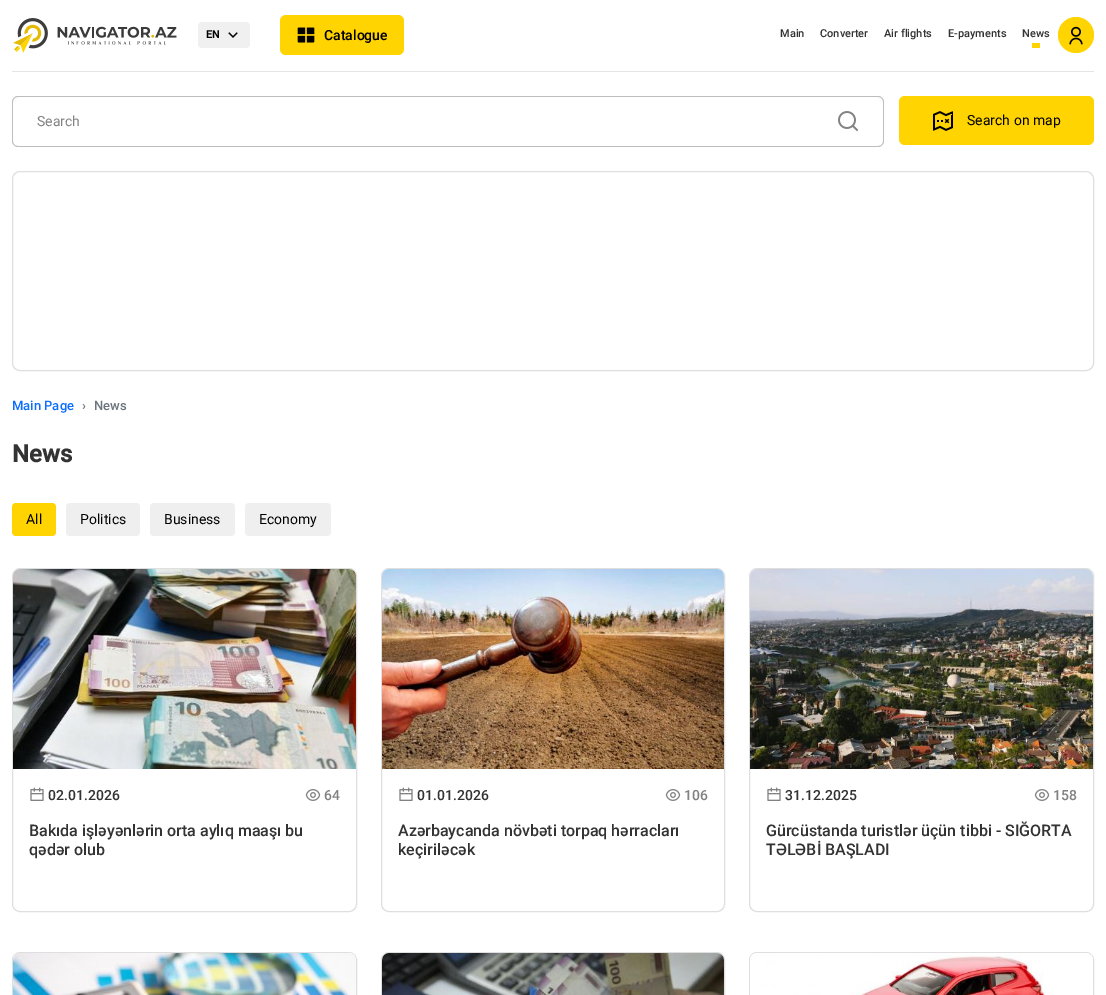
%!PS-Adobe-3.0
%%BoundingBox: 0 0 1106 995
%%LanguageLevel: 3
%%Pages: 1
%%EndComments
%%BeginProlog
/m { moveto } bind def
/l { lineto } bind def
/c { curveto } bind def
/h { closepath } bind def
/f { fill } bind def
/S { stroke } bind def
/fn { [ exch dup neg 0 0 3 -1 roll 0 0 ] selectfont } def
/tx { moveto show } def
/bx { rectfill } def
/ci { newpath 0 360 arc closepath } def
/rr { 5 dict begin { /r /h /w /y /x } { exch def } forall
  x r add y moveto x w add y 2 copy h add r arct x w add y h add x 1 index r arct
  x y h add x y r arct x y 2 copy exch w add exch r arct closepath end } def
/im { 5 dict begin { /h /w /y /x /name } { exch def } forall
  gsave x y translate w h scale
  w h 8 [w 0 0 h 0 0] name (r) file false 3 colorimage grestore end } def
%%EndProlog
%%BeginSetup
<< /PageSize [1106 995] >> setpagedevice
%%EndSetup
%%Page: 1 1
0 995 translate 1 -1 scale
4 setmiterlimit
1 setgray
0 0 1106 995 bx
0.898 setgray
12 71 1082 1 bx
(image0.raw) 13 18 164 35 im
0.941 setgray
198 22 52 26 4 rr f
/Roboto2-Bold 11 fn
0 setgray
(EN) 206 38 tx
(image1.raw) 228 32 10 6 im
1 0.831 0 setrgbcolor
280 15 124 40 6 rr f
(image2.raw) 297 27 18 16 im
/Roboto-Medium 14 fn
0 setgray
(Catalogue) 324 40 tx
/Roboto-Medium 11 fn
0.2 setgray
(Main) 780 37 tx
(Converter) 820 37 tx
(Air flights) 884 37 tx
(E-payments) 948 37 tx
(News) 1022 37 tx
1 0.831 0 setrgbcolor
1032 43 8 5 bx
1076 35 18 ci f
(image3.raw) 1069 26 14 19 im
0.741 setgray
833 96 m 878 96 l 881 96 884 99 884 102 c 884 141 l 884 144 881 147 878 147 c 833 147 l h 833 97 m 878 97 l 881 97 883 99 883 102 c 883 141 l 883 144 881 146 878 146 c 833 146 l h eofill
18 96 m 834 96 l 834 147 l 18 147 l 15 147 12 144 12 141 c 12 102 l 12 99 15 96 18 96 c h 18 97 m 834 97 l 834 146 l 18 146 l 15 146 13 144 13 141 c 13 102 l 13 99 15 97 18 97 c h eofill
/Roboto-Regular 14 fn
0.51 setgray
(Search) 37 126 tx
(image4.raw) 838 111 21 21 im
1 0.831 0 setrgbcolor
899 96 195 49 6 rr f
(image5.raw) 933 111 20 20 im
0 setgray
(Search on map) 967 125 tx
0.875 setgray
12.5 171.5 1081 199 7.5 rr S
/Roboto-Medium 13 fn
0.051 0.431 0.992 setrgbcolor
(Main Page) 12 410 tx
0.424 0.459 0.49 setrgbcolor
(›) 82 410 tx
(News) 94 410 tx
/Roboto-Bold 24 fn
0.2 setgray
(News) 12 462 tx
1 0.831 0 setrgbcolor
12 503 44 33 4 rr f
/Roboto-Regular 14 fn
0 setgray
(All) 26 524 tx
0.937 setgray
66 503 74 33 4 rr f
0 setgray
(Politics) 80 524 tx
0.937 setgray
150 503 85 33 4 rr f
0 setgray
(Business) 164 524 tx
0.937 setgray
245 503 86 33 4 rr f
0 setgray
(Economy) 259 524 tx
0.875 setgray
12.5 568.5 344 343 7.5 rr S
(image6.raw) 13 569 343 200 im
(image7.raw) 30 787 14 14 im
/Roboto-Medium 14 fn
0.2 setgray
(02.01.2026) 48 800 tx
(image8.raw) 305 789 16 12 im
0.51 setgray
(64) 324 800 tx
/Roboto-Medium 16 fn
0.2 setgray
(Bakıda işləyənlərin orta aylıq maaşı bu) 29 836 tx
(qədər olub) 29 855 tx
0.875 setgray
381.5 568.5 343 343 7.5 rr S
(image9.raw) 382 569 342 200 im
(image7.raw) 399 787 14 14 im
/Roboto-Medium 14 fn
0.2 setgray
(01.01.2026) 417 800 tx
(image8.raw) 665 789 16 12 im
0.51 setgray
(106) 684 800 tx
/Roboto-Medium 16 fn
0.2 setgray
(Azərbaycanda növbəti torpaq hərracları) 398 836 tx
(keçiriləcək) 398 855 tx
0.875 setgray
749.5 568.5 344 343 7.5 rr S
(image10.raw) 750 569 343 200 im
(image7.raw) 767 787 14 14 im
/Roboto-Medium 14 fn
0.2 setgray
(31.12.2025) 785 800 tx
(image8.raw) 1034 789 16 12 im
0.51 setgray
(158) 1053 800 tx
/Roboto-Medium 16 fn
0.2 setgray
(Gürcüstanda turistlər üçün tibbi - SIĞORTA) 766 836 tx
(TƏLƏBİ BAŞLADI) 766 855 tx
0.875 setgray
12.5 952.5 344 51 7.5 rr S
(image11.raw) 13 953 343 42 im
381.5 952.5 343 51 7.5 rr S
(image12.raw) 382 953 342 42 im
749.5 952.5 344 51 7.5 rr S
(image13.raw) 750 953 343 42 im
showpage
%%EOF
